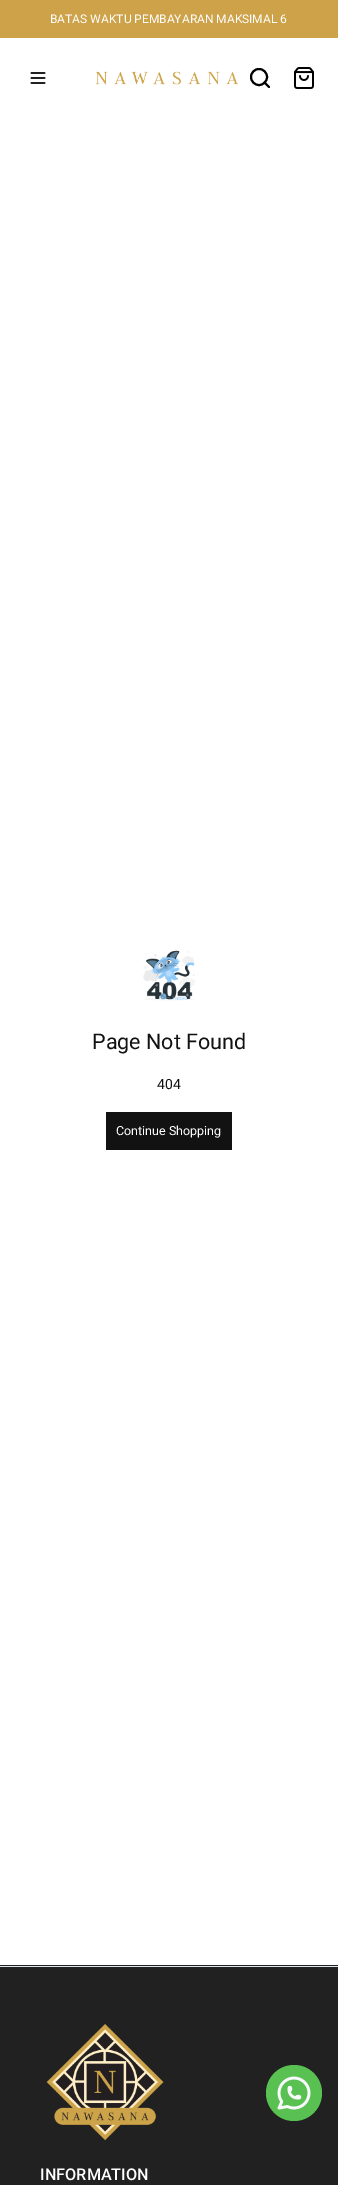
%!PS-Adobe-3.0
%%BoundingBox: 0 0 338 2185
%%LanguageLevel: 3
%%Pages: 1
%%EndComments
%%BeginProlog
/m { moveto } bind def
/l { lineto } bind def
/f { fill } bind def
/S { stroke } bind def
/w { setlinewidth } bind def
/fn { [ exch dup neg 0 0 3 -1 roll 0 0 ] selectfont } def
/tx { moveto show } def
/bx { rectfill } def
/ci { newpath 0 360 arc closepath } def
/im { 5 dict begin { /h /w /y /x /name } { exch def } forall
  gsave x y translate w h scale
  w h 8 [w 0 0 h 0 0] name (r) file false 3 colorimage grestore end } def
%%EndProlog
%%BeginSetup
<< /PageSize [338 2185] >> setpagedevice
%%EndSetup
%%Page: 1 1
0 2185 translate 1 -1 scale
4 setmiterlimit
1 setgray
0 0 338 2185 bx
0.804 0.635 0.282 setrgbcolor
0 0 338 38 bx
/Roboto-Regular 12 fn
1 setgray
(BATAS WAKTU PEMBAYARAN MAKSIMAL 6) 50 23 tx
(image0.raw) 30 72 16 12 im
(image1.raw) 95 71 144 14 im
0 setgray
2 w
1 setlinecap
1 setlinejoin
269 87 m 264.5 82.5 l S
0 setlinecap
0 setlinejoin
259 77 8 ci S
(image2.raw) 294 67 20 22 im
(image3.raw) 143 950 52 51 im
/Roboto-Regular 21.5 fn
0.071 setgray
(Page Not Found) 92 1049 tx
/Roboto-Regular 14 fn
(404) 157 1089 tx
106 1112 126 38 bx
/Roboto-Regular 12.5 fn
1 setgray
(Continue Shopping) 116 1135 tx
0.129 setgray
0 1965 338 220 bx
0.878 0.91 0.949 setrgbcolor
0 1966 338 1 bx
(image4.raw) 46 2023 118 118 im
/Roboto-Medium 16.25 fn
1 setgray
(INFORMATION) 40 2180 tx
0.345 0.757 0.318 setrgbcolor
294 2093 28 ci f
(image5.raw) 277 2076 34 34 im
showpage
%%EOF
